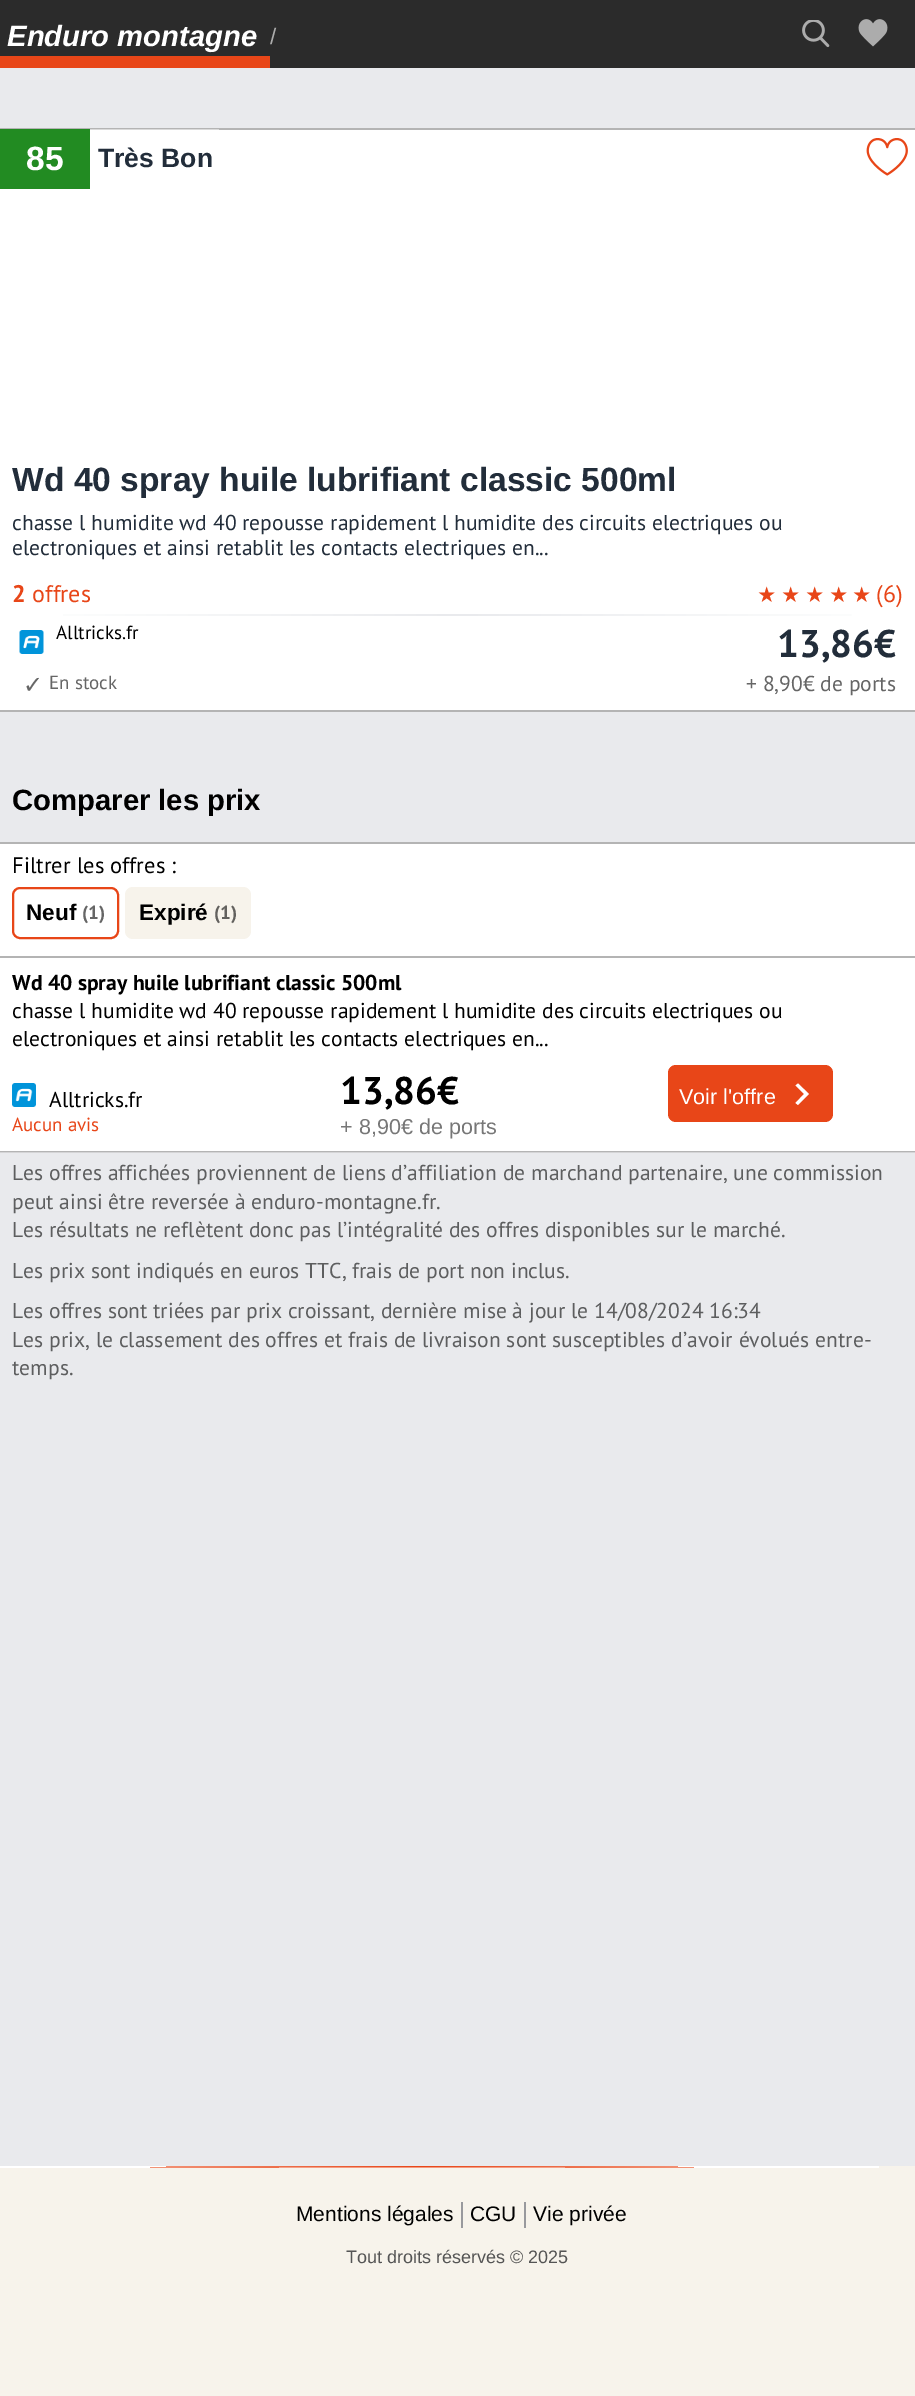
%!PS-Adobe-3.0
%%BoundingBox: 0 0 915 2396
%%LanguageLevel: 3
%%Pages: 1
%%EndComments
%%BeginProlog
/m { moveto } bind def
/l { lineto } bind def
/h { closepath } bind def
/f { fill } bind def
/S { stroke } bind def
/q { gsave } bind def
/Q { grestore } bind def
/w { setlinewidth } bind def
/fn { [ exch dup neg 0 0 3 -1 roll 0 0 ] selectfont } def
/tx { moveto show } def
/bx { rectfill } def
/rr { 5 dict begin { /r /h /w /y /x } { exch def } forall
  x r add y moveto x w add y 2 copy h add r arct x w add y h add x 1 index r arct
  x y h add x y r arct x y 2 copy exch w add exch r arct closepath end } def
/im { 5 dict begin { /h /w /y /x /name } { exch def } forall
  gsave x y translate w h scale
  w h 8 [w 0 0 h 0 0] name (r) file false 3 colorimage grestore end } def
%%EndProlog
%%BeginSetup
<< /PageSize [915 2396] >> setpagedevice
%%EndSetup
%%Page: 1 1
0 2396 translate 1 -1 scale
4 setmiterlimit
0.914 0.918 0.929 setrgbcolor
0 0 915 2396 bx
0.169 setgray
0 0 915 68 bx
0.91 0.275 0.094 setrgbcolor
0 56 270 12 bx
/LiberationSans-BoldItalic 29.25 fn
1 setgray
(Enduro montagne) 7 46 tx
/LiberationSans-Regular 22.5 fn
0.675 setgray
(/) 270 44 tx
(image0.raw) 802 20 28 28 im
(image1.raw) 858 19 30 28 im
1 setgray
0 130 915 580 bx
0.706 setgray
0 128 915 2 bx
0.855 setgray
90 129 129 1 bx
0.706 setgray
0 710 915 2 bx
0.133 0.545 0.133 setrgbcolor
0 129 90 60 bx
/LiberationSans-Bold 33.6 fn
1 setgray
(85) 26 170 tx
/LiberationSans-Bold 26.5 fn
0.133 0.176 0.227 setrgbcolor
(Très Bon) 98 167 tx
(image2.raw) 866 138 42 38 im
/LiberationSans-Bold 33.6 fn
(Wd 40 spray huile lubrifiant classic 500ml) 12 491 tx
/PTSans-Regular 21.6 fn
(chasse l humidite wd 40 repousse rapidement l humidite des circuits electriques ou) 12 530 tx
(electroniques et ainsi retablit les contacts electriques en...) 12 555 tx
/PTSans-Bold 24 fn
0.91 0.275 0.094 setrgbcolor
(2) 12 602 tx
/PTSans-Regular 24 fn
(offres) 32 602 tx
/DejaVuSans-Regular 21.6 fn
757 602 m 4.5 0 (★★★★★) ashow
/PTSans-Regular 24 fn
(\(6\)) 876 602 tx
q 63 614 m 852 614 l 852 616 l 63 616 l h clip newpath
<< /ShadingType 2 /ColorSpace /DeviceRGB /Coords [12 614 903 614] /Extend [true true] /Function << /FunctionType 3 /Domain [0 1] /Functions [<< /FunctionType 2 /Domain [0 1] /C0 [1 1 1] /C1 [0.914 0.918 0.929] /N 1 >> << /FunctionType 2 /Domain [0 1] /C0 [0.914 0.918 0.929] /C1 [1 1 1] /N 1 >>] /Bounds [0.5] /Encode [0 1 0 1] >> >> shfill Q
(image3.raw) 19 630 25 24 im
/PTSans-Regular 19 fn
0 setgray
(Alltricks.fr) 56 639 tx
/PTSans-Bold 38.5 fn
0.133 0.176 0.227 setrgbcolor
(13,86€) 777 657 tx
/DejaVuSans-Regular 24 fn
0.4 setgray
(✓) 23 693 tx
/PTSans-Regular 19 fn
(En stock) 49 689 tx
/PTSans-Regular 21.6 fn
(+ 8,90€ de ports) 746 691 tx
/LiberationSans-Bold 29.25 fn
0 setgray
(Comparer les prix) 12 810 tx
1 setgray
0 844 915 307 bx
0.706 setgray
0 842 915 2 bx
/PTSans-Regular 22.5 fn
0 setgray
(Filtrer les offres :) 12 873 tx
0.91 0.275 0.094 setrgbcolor
2 w
13 888 105 50 7 rr S
/LiberationSans-Bold 22.5 fn
0 setgray
(Neuf) 26 920 tx
/PTSans-Bold 19 fn
0.4 setgray
(\(1\)) 82 919 tx
0.969 0.953 0.922 setrgbcolor
125 887 126 52 8 rr f
/LiberationSans-Bold 22.5 fn
0 setgray
(Expiré) 139 920 tx
/PTSans-Bold 19 fn
0.388 0.38 0.369 setrgbcolor
(\(1\)) 214 919 tx
0.706 setgray
0 956 915 2 bx
0 1151 915 1 bx
0.831 0.831 0.839 setrgbcolor
0 1152 915 1 bx
/PTSans-Bold 21.6 fn
0 setgray
(Wd 40 spray huile lubrifiant classic 500ml) 12 990 tx
/PTSans-Regular 21.6 fn
(chasse l humidite wd 40 repousse rapidement l humidite des circuits electriques ou) 12 1018 tx
(electroniques et ainsi retablit les contacts electriques en...) 12 1046 tx
(image4.raw) 12 1083 24 24 im
(Alltricks.fr) 49 1107 tx
/PTSans-Regular 19 fn
0.91 0.275 0.094 setrgbcolor
(Aucun avis) 12 1131 tx
/PTSans-Bold 38.5 fn
0 setgray
(13,86€) 340 1104 tx
/LiberationSans-Regular 21.6 fn
0.467 setgray
(+ 8,90€ de ports) 340 1134 tx
0.91 0.275 0.094 setrgbcolor
668 1065 165 57 8 rr f
1 setgray
(Voir l'offre) 679 1104 tx
804 1094 m 795.5 1085.5 l 798 1083.5 l 809 1094 l 798 1105 l 795.5 1103 l h f
/PTSans-Regular 21.6 fn
0.365 0.369 0.373 setrgbcolor
(Les offres affichées proviennent de liens d’affiliation de marchand partenaire, une commission) 12 1180 tx
(peut ainsi être reversée à enduro-montagne.fr.) 12 1209 tx
(Les résultats ne reflètent donc pas l’intégralité des offres disponibles sur le marché.) 12 1237 tx
(Les prix sont indiqués en euros TTC, frais de port non inclus.) 12 1278 tx
(Les offres sont triées par prix croissant, dernière mise à jour le 14/08/2024 16:34) 12 1318 tx
(Les prix, le classement des offres et frais de livraison sont susceptibles d’avoir évolués entre-) 12 1347 tx
(temps.) 12 1375 tx
0.969 0.953 0.922 setrgbcolor
0 2166 915 230 bx
q 0 2166 m 879 2166 l 879 2168 l 0 2168 l h clip newpath 422 2167 translate 647 1.1 scale
<< /ShadingType 3 /ColorSpace /DeviceRGB /Coords [0 0 0 0 0 1] /Extend [true true] /Function << /FunctionType 2 /Domain [0 1] /C0 [0.91 0.275 0.094] /C1 [1 1 1] /N 1 >> >> shfill Q
0.6 0.6 0.616 setrgbcolor
461 2202 2 26 bx
/LiberationSans-Regular 21 fn
0 setgray
(Mentions légales) 296 2221 tx
0.6 0.6 0.616 setrgbcolor
524 2202 2 26 bx
0 setgray
(CGU) 470 2221 tx
(Vie privée) 533 2221 tx
/LiberationSans-Regular 18 fn
0.333 setgray
(Tout droits réservés © 2025) 346 2263 tx
showpage
%%EOF
